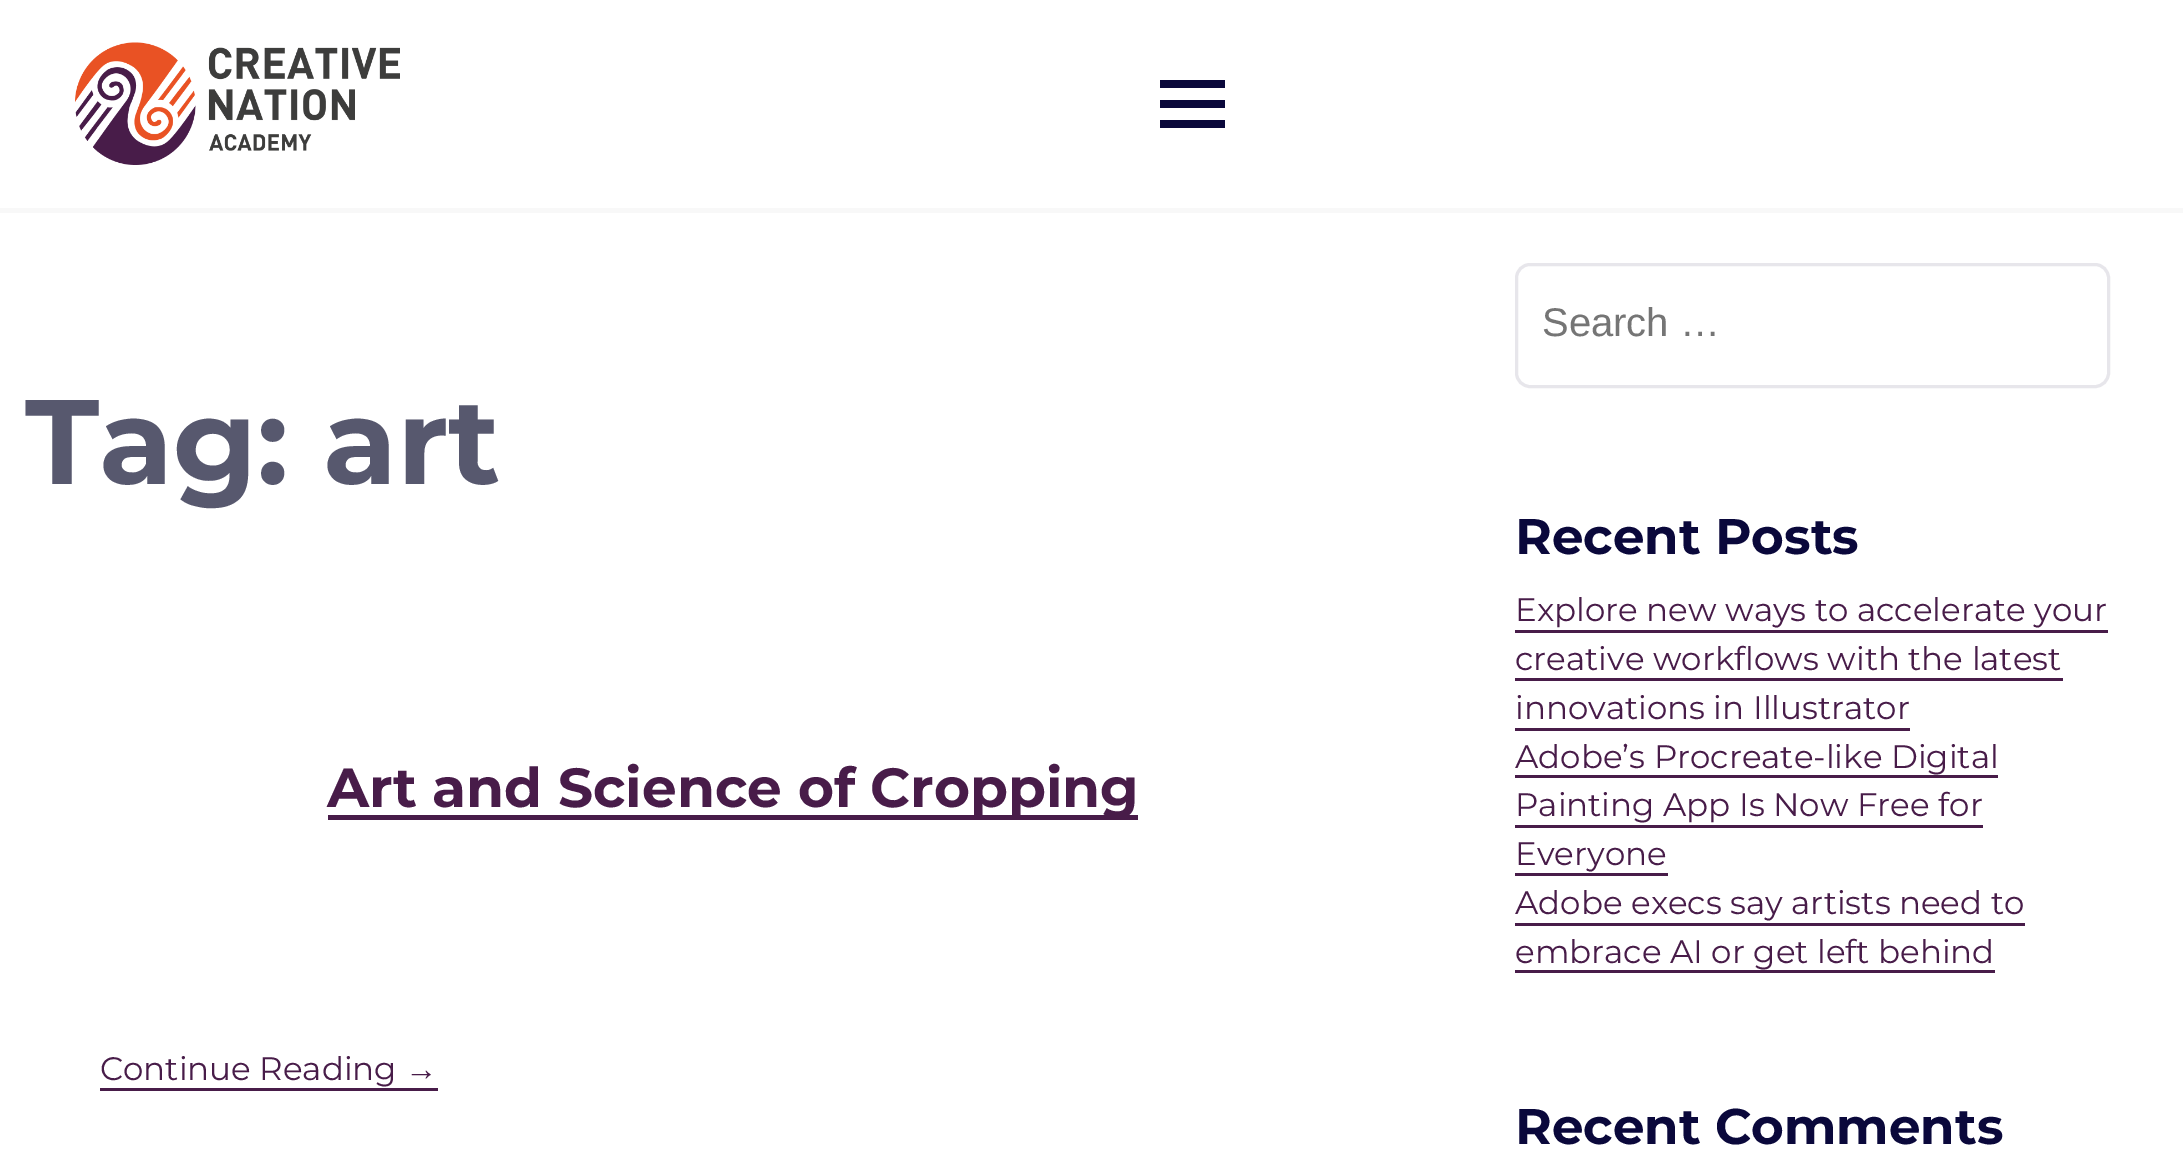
%!PS-Adobe-3.0
%%BoundingBox: 0 0 2183 1174
%%LanguageLevel: 3
%%Pages: 1
%%EndComments
%%BeginProlog
/S { stroke } bind def
/w { setlinewidth } bind def
/fn { [ exch dup neg 0 0 3 -1 roll 0 0 ] selectfont } def
/tx { moveto show } def
/bx { rectfill } def
/rr { 5 dict begin { /r /h /w /y /x } { exch def } forall
  x r add y moveto x w add y 2 copy h add r arct x w add y h add x 1 index r arct
  x y h add x y r arct x y 2 copy exch w add exch r arct closepath end } def
/im { 5 dict begin { /h /w /y /x /name } { exch def } forall
  gsave x y translate w h scale
  w h 8 [w 0 0 h 0 0] name (r) file false 3 colorimage grestore end } def
%%EndProlog
%%BeginSetup
<< /PageSize [2183 1174] >> setpagedevice
%%EndSetup
%%Page: 1 1
0 1174 translate 1 -1 scale
4 setmiterlimit
1 setgray
0 0 2183 1174 bx
0.973 setgray
0 208 2183 5 bx
(image0.raw) 75 42 325 123 im
0.039 0.031 0.231 setrgbcolor
1160 100 65 8 bx
1160 80 65 8 bx
1160 120 65 8 bx
/Montserrat-Bold 120 fn
0.341 0.345 0.431 setrgbcolor
(Tag: art) 25 484 tx
0.282 0.11 0.286 setrgbcolor
328 815 810 5 bx
/Montserrat-Bold 55 fn
(Art and Science of Cropping) 327 807 tx
/Montserrat-Regular 32.5 fn
(Continue Reading) 100 1080 tx
/LiberationSerif-Regular 32.5 fn
(→) 405 1080 tx
100 1088 338 3 bx
0.906 0.902 0.922 setrgbcolor
3 w
1516.5 264.5 592 122 13.5 rr S
/LiberationSans-Regular 40 fn
0.459 setgray
(Search …) 1542 336 tx
/Montserrat-Bold 50 fn
0.039 0.031 0.231 setrgbcolor
(Recent Posts) 1515 554 tx
/Montserrat-Regular 32.5 fn
0.282 0.11 0.286 setrgbcolor
(Explore new ways to accelerate your) 1515 621 tx
1515 630 593 3 bx
(creative workflows with the latest) 1515 670 tx
1515 678 548 3 bx
(innovations in Illustrator) 1515 719 tx
1515 728 395 3 bx
(Adobe’s Procreate-like Digital) 1515 768 tx
1515 775 483 3 bx
(Painting App Is Now Free for) 1515 816 tx
1515 825 468 3 bx
(Everyone) 1515 865 tx
1515 873 153 3 bx
(Adobe execs say artists need to) 1515 914 tx
1515 923 510 3 bx
(embrace AI or get left behind) 1515 963 tx
1515 970 480 3 bx
/Montserrat-Bold 50 fn
0.039 0.031 0.231 setrgbcolor
(Recent Comments) 1515 1144 tx
showpage
%%EOF
